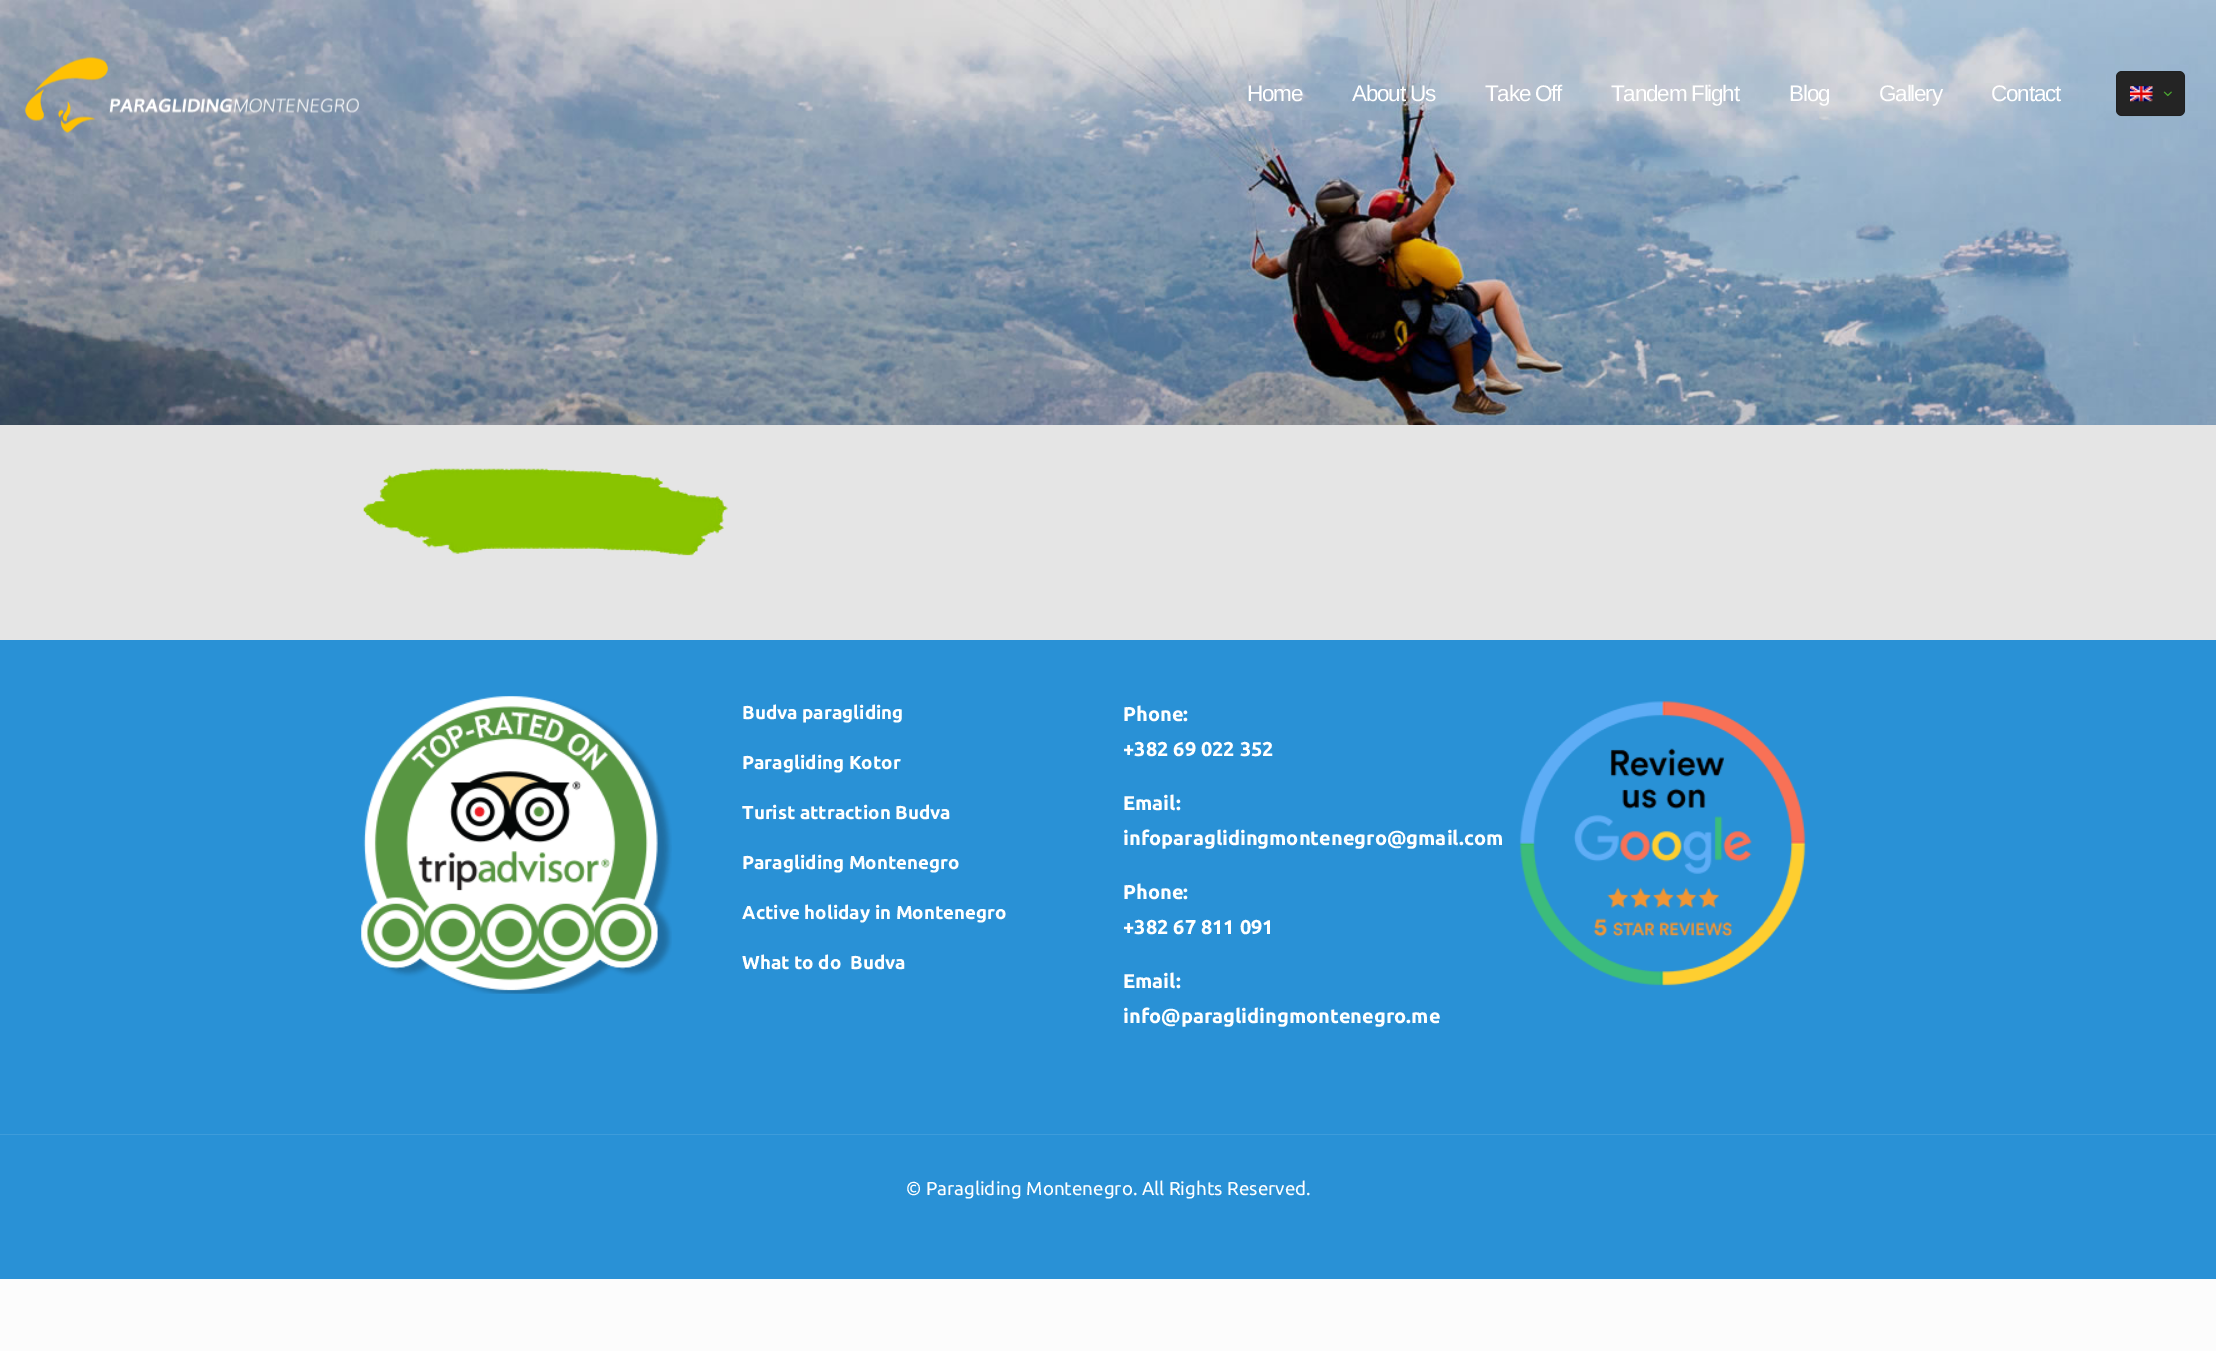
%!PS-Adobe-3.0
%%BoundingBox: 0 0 2216 1351
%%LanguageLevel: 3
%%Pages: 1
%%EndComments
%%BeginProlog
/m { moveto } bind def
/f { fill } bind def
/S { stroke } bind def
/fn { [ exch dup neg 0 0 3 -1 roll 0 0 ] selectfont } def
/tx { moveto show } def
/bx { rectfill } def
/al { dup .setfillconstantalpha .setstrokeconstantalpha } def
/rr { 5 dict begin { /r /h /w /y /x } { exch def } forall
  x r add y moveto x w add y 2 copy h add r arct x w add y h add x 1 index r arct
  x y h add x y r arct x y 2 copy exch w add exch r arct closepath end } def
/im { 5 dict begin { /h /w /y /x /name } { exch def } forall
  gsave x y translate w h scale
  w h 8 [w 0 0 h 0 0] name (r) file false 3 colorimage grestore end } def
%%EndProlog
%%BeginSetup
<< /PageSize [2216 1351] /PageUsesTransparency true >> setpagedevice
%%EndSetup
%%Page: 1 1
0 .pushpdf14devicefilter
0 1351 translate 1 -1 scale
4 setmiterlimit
0.988 setgray
0 0 2216 1351 bx
0.898 setgray
0 425 2216 215 bx
(image0.raw) 0 0 2216 425 im
(image1.raw) 25 57 334 76 im
/LiberationSans-Regular 22.5 fn
1 setgray
1247 101 m -1.25 0 (Home) ashow
1352 101 m -1.25 0 (About Us) ashow
1485 101 m -1.25 0 (Take Off) ashow
1611 101 m -1.25 0 (Tandem Flight) ashow
1789 101 m -1.25 0 (Blog) ashow
1879 101 m -1.25 0 (Gallery) ashow
1991 101 m -1.25 0 (Contact) ashow
0.141 setgray
2116 71 69 45 6 rr f
0.1 al
0 setgray
2116.5 71.5 68 44 5.5 rr S
1 al
(image2.raw) 2130 86 23 16 im
(image3.raw) 2163 91 9 6 im
(image4.raw) 363 468 365 88 im
0.161 0.569 0.839 setrgbcolor
0 640 2216 639 bx
(image5.raw) 361 696 311 298 im
/Ubuntu-Bold 18.75 fn
1 setgray
(Budva paragliding) 742 719 tx
(Paragliding Kotor) 742 769 tx
(Turist attraction Budva) 742 819 tx
(Paragliding Montenegro) 742 869 tx
(Active holiday in Montenegro) 742 919 tx
(What to do  Budva) 742 969 tx
/Ubuntu-Bold 20 fn
(Phone:) 1123 721 tx
(+382 69 022 352) 1123 756 tx
(Email:) 1123 810 tx
(infoparaglidingmontenegro@gmail.com) 1123 845 tx
(Phone:) 1123 899 tx
(+382 67 811 091) 1123 934 tx
(Email:) 1123 988 tx
(info@paraglidingmontenegro.me) 1123 1023 tx
(image6.raw) 1519 701 287 285 im
0.243 0.612 0.855 setrgbcolor
0 1134 2216 1 bx
/Ubuntu-Regular 18.75 fn
1 setgray
(© Paragliding Montenegro. All Rights Reserved.) 906 1195 tx
.poppdf14devicefilter showpage
%%EOF
